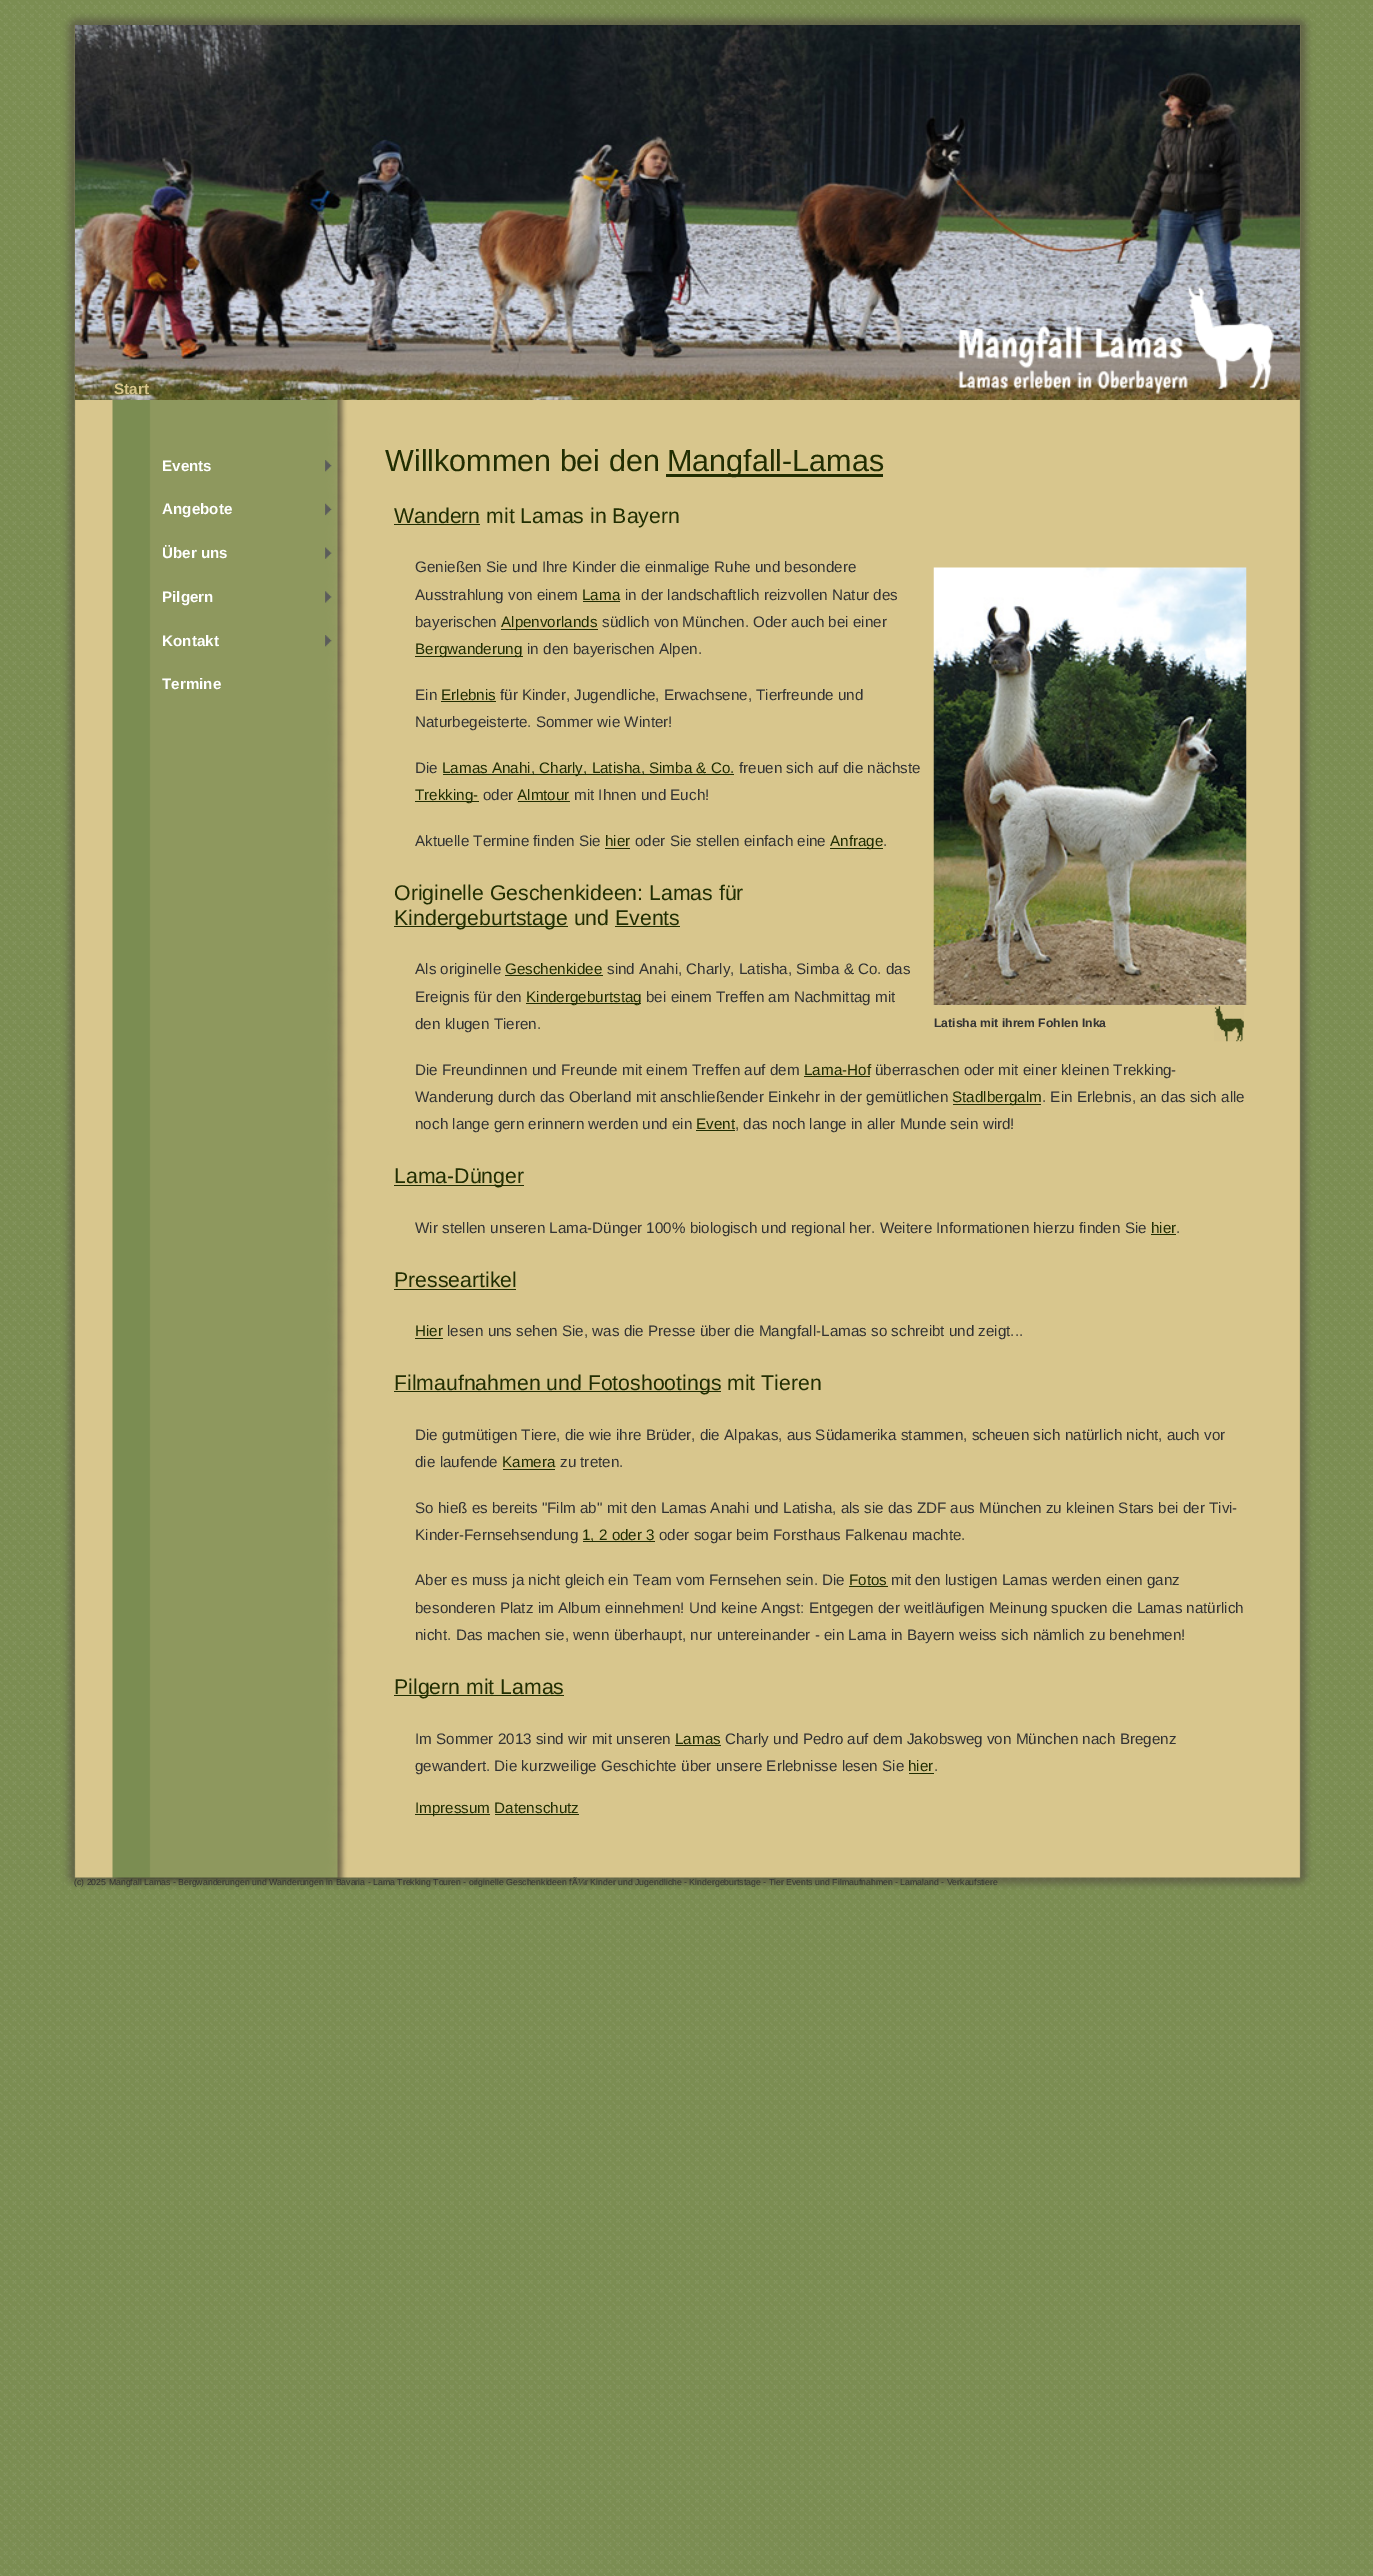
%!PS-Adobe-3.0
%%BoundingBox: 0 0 1373 2576
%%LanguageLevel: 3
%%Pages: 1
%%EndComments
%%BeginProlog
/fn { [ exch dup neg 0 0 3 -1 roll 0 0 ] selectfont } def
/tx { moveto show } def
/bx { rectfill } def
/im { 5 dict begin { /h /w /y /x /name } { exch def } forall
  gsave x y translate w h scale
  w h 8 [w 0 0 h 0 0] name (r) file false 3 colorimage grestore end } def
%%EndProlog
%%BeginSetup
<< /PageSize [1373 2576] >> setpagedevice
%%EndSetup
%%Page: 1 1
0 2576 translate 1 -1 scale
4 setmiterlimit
0.482 0.553 0.322 setrgbcolor
0 0 1373 2576 bx
(image0.raw) 0 1 1373 2575 im
(image1.raw) 62 0 1251 1890 im
(image2.raw) 63 0 1250 25 im
(image3.raw) 75 25 1225 375 im
/LiberationSans-Bold 15.2 fn
0.847 0.776 0.553 setrgbcolor
(Start) 114 394 tx
(image4.raw) 958 287 316 107 im
1 setgray
(Events) 162 471 tx
(image5.raw) 325 460 7 12 im
(Angebote) 162 514 tx
(image6.raw) 325 503 7 13 im
(Über uns) 162 558 tx
(image7.raw) 325 547 7 12 im
(Pilgern) 162 602 tx
(image8.raw) 325 591 7 12 im
(Kontakt) 162 646 tx
(image9.raw) 325 635 7 12 im
(Termine) 162 689 tx
/LiberationSans-Regular 30.5 fn
0.129 0.18 0.008 setrgbcolor
(Willkommen bei den) 385 471 tx
666 474 217 3 bx
(Mangfall-Lamas) 667 471 tx
394 524 86 1 bx
/LiberationSans-Regular 21.25 fn
(Wandern mit Lamas in Bayern) 394 523 tx
/LiberationSans-Regular 15.2 fn
0.2 setgray
(Genießen Sie und Ihre Kinder die einmalige Ruhe und besondere) 415 572 tx
(Ausstrahlung von einem) 415 600 tx
0.129 0.18 0.008 setrgbcolor
(Lama) 582 600 tx
583 601 37 1 bx
0.2 setgray
(in der landschaftlich reizvollen Natur des) 625 600 tx
(bayerischen) 415 627 tx
0.129 0.18 0.008 setrgbcolor
501 629 97 1 bx
(Alpenvorlands) 501 627 tx
0.2 setgray
(südlich von München. Oder auch bei einer) 602 627 tx
0.129 0.18 0.008 setrgbcolor
415 656 108 1 bx
(Bergwanderung) 415 654 tx
0.2 setgray
(in den bayerischen Alpen.) 527 654 tx
(image10.raw) 1214 1006 30 36 im
(image11.raw) 933 567 314 438 im
/LiberationSans-Bold 12.2 fn
(Latisha mit ihrem Fohlen Inka) 934 1027 tx
/LiberationSans-Regular 15.2 fn
(Ein) 415 700 tx
0.129 0.18 0.008 setrgbcolor
(Erlebnis) 441 700 tx
441 701 55 1 bx
0.2 setgray
(für Kinder, Jugendliche, Erwachsene, Tierfreunde und) 500 700 tx
(Naturbegeisterte. Sommer wie Winter!) 415 727 tx
(Die) 415 773 tx
0.129 0.18 0.008 setrgbcolor
443 774 291 1 bx
(Lamas Anahi, Charly, Latisha, Simba & Co.) 442 773 tx
0.2 setgray
(freuen sich auf die nächste) 739 773 tx
0.129 0.18 0.008 setrgbcolor
415 801 64 1 bx
(Trekking-) 415 800 tx
0.2 setgray
(oder) 483 800 tx
0.129 0.18 0.008 setrgbcolor
(Almtour) 517 800 tx
518 801 52 1 bx
0.2 setgray
(mit Ihnen und Euch!) 574 800 tx
(Aktuelle Termine finden Sie) 415 846 tx
0.129 0.18 0.008 setrgbcolor
(hier) 605 846 tx
605 848 25 1 bx
0.2 setgray
(oder Sie stellen einfach eine) 635 846 tx
0.129 0.18 0.008 setrgbcolor
830 848 53 1 bx
(Anfrage) 830 846 tx
0.2 setgray
(.) 883 846 tx
/LiberationSans-Regular 21.25 fn
0.129 0.18 0.008 setrgbcolor
(Originelle Geschenkideen: Lamas für) 394 900 tx
394 926 174 1 bx
(Kindergeburtstage und Events) 394 925 tx
615 926 65 1 bx
/LiberationSans-Regular 15.2 fn
0.2 setgray
(Als originelle) 415 974 tx
0.129 0.18 0.008 setrgbcolor
(Geschenkidee) 505 974 tx
505 975 98 1 bx
0.2 setgray
(sind Anahi, Charly, Latisha, Simba & Co. das) 607 974 tx
(Ereignis für den) 415 1002 tx
0.129 0.18 0.008 setrgbcolor
526 1003 115 1 bx
(Kindergeburtstag) 526 1002 tx
0.2 setgray
(bei einem Treffen am Nachmittag mit) 646 1002 tx
(den klugen Tieren.) 415 1029 tx
(Die Freundinnen und Freunde mit einem Treffen auf dem) 415 1075 tx
0.129 0.18 0.008 setrgbcolor
(Lama-Hof) 804 1075 tx
804 1076 66 1 bx
0.2 setgray
(überraschen oder mit einer kleinen Trekking-) 875 1075 tx
(Wanderung durch das Oberland mit anschließender Einkehr in der gemütlichen) 415 1102 tx
0.129 0.18 0.008 setrgbcolor
953 1104 88 1 bx
(Stadlbergalm) 952 1102 tx
0.2 setgray
(. Ein Erlebnis, an das sich alle) 1042 1102 tx
(noch lange gern erinnern werden und ein) 415 1129 tx
0.129 0.18 0.008 setrgbcolor
(Event) 696 1129 tx
696 1130 39 1 bx
0.2 setgray
(, das noch lange in aller Munde sein wird!) 735 1129 tx
0.129 0.18 0.008 setrgbcolor
394 1185 130 1 bx
/LiberationSans-Regular 21.25 fn
(Lama-Dünger) 394 1183 tx
/LiberationSans-Regular 15.2 fn
0.2 setgray
(Wir stellen unseren Lama-Dünger 100% biologisch und regional her. Weitere Informationen hierzu finden Sie) 415 1233 tx
0.129 0.18 0.008 setrgbcolor
(hier) 1151 1233 tx
1151 1234 25 1 bx
0.2 setgray
(.) 1176 1233 tx
/LiberationSans-Regular 21.25 fn
0.129 0.18 0.008 setrgbcolor
(Presseartikel) 394 1287 tx
394 1289 122 1 bx
/LiberationSans-Regular 15.2 fn
(Hier) 415 1336 tx
415 1338 28 1 bx
0.2 setgray
(lesen uns sehen Sie, was die Presse über die Mangfall-Lamas so schreibt und zeigt...) 447 1336 tx
0.129 0.18 0.008 setrgbcolor
394 1391 327 1 bx
/LiberationSans-Regular 21.25 fn
(Filmaufnahmen und Fotoshootings mit Tieren) 394 1390 tx
/LiberationSans-Regular 15.2 fn
0.2 setgray
(Die gutmütigen Tiere, die wie ihre Brüder, die Alpakas, aus Südamerika stammen, scheuen sich natürlich nicht, auch vor) 415 1440 tx
(die laufende) 415 1467 tx
0.129 0.18 0.008 setrgbcolor
(Kamera) 502 1467 tx
503 1469 52 1 bx
0.2 setgray
(zu treten.) 560 1467 tx
(So hieß es bereits "Film ab" mit den Lamas Anahi und Latisha, als sie das ZDF aus München zu kleinen Stars bei der Tivi-) 415 1513 tx
(Kinder-Fernsehsendung) 415 1540 tx
0.129 0.18 0.008 setrgbcolor
583 1541 72 1 bx
(1, 2 oder 3) 582 1540 tx
0.2 setgray
(oder sogar beim Forsthaus Falkenau machte.) 659 1540 tx
(Aber es muss ja nicht gleich ein Team vom Fernsehen sein. Die) 415 1585 tx
0.129 0.18 0.008 setrgbcolor
(Fotos) 849 1585 tx
849 1586 39 1 bx
0.2 setgray
(mit den lustigen Lamas werden einen ganz) 891 1585 tx
(besonderen Platz im Album einnehmen! Und keine Angst: Entgegen der weitläufigen Meinung spucken die Lamas natürlich) 415 1613 tx
(nicht. Das machen sie, wenn überhaupt, nur untereinander - ein Lama in Bayern weiss sich nämlich zu benehmen!) 415 1640 tx
0.129 0.18 0.008 setrgbcolor
394 1695 170 1 bx
/LiberationSans-Regular 21.25 fn
(Pilgern mit Lamas) 394 1694 tx
/LiberationSans-Regular 15.2 fn
0.2 setgray
(Im Sommer 2013 sind wir mit unseren) 415 1744 tx
0.129 0.18 0.008 setrgbcolor
(Lamas) 675 1744 tx
675 1745 46 1 bx
0.2 setgray
(Charly und Pedro auf dem Jakobsweg von München nach Bregenz) 725 1744 tx
(gewandert. Die kurzweilige Geschichte über unsere Erlebnisse lesen Sie) 415 1771 tx
0.129 0.18 0.008 setrgbcolor
(hier) 908 1771 tx
909 1773 25 1 bx
0.2 setgray
(.) 934 1771 tx
0.129 0.18 0.008 setrgbcolor
415 1814 75 1 bx
(Impressum Datenschutz) 415 1813 tx
495 1814 84 1 bx
(image12.raw) 64 1877 1249 13 im
/LiberationSans-Regular 8.75 fn
0.2 setgray
(\(c\) 2025 Mangfall Lamas - Bergwanderungen und Wanderungen in Bavaria - Lama Trekking Touren - originelle Geschenkideen fÃ¼r Kinder und Jugendliche - Kindergeburtstage - Tier Events und Filmaufnahmen - Lamaland - Verkaufstiere) 74 1885 tx
showpage
%%EOF
